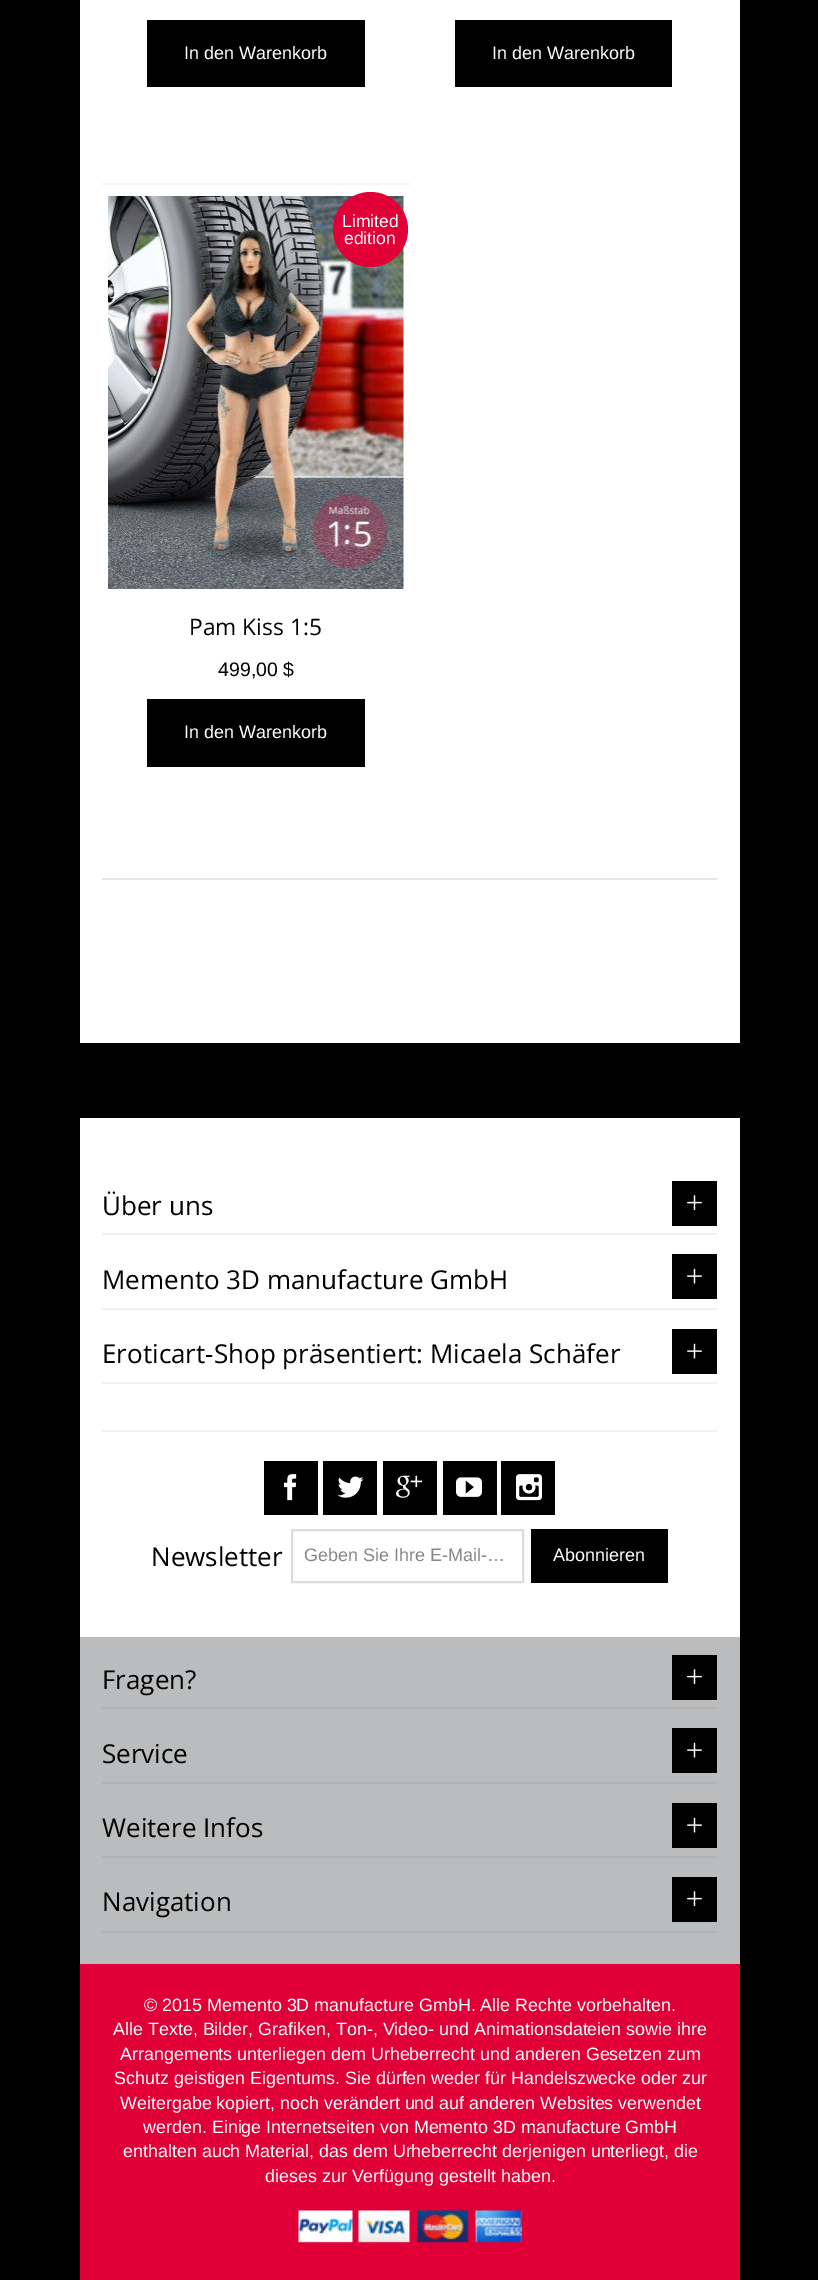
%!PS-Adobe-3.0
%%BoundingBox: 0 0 818 2280
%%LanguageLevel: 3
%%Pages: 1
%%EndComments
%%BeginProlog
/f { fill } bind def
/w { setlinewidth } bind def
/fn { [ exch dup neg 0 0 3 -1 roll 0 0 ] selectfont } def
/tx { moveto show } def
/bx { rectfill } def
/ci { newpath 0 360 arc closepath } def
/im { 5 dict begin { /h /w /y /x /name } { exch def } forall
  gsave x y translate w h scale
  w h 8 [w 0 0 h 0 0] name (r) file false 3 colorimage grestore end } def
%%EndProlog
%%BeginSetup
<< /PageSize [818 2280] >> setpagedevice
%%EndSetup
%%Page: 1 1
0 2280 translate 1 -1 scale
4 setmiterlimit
0 setgray
0 0 818 2280 bx
1 setgray
80 0 660 1043 bx
0 setgray
147 20 218 67 bx
/LiberationSans-Regular 18 fn
1 setgray
(In den Warenkorb) 184 59 tx
0 setgray
455 20 217 67 bx
1 setgray
(In den Warenkorb) 492 59 tx
0.961 setgray
102 183 308 2 bx
(image0.raw) 108 196 296 393 im
0.878 0 0.216 setrgbcolor
370.5 229.5 37.5 ci f
/LiberationSans-Regular 17.5 fn
1 setgray
(Limited) 342 227 tx
(edition) 344 244 tx
/OpenSans-Regular 22.75 fn
0 setgray
(Pam Kiss 1:5) 189 635 tx
/LiberationSans-Regular 19.5 fn
(499,00 $) 218 676 tx
147 699 218 68 bx
/LiberationSans-Regular 18 fn
1 setgray
(In den Warenkorb) 184 738 tx
0.898 setgray
102 878 615 2 bx
1 setgray
80 1118 660 519 bx
0.949 setgray
102 1233 615 2 bx
/OpenSans-Regular 26 fn
0 setgray
(Über uns) 102 1215 tx
672 1181 45 45 bx
(image1.raw) 687 1195 15 16 im
0.949 setgray
102 1308 615 2 bx
0 setgray
(Memento 3D manufacture GmbH) 102 1289 tx
672 1254 45 45 bx
(image2.raw) 687 1268 15 16 im
0.949 setgray
102 1382 615 2 bx
0 setgray
(Eroticart-Shop präsentiert: Micaela Schäfer) 102 1363 tx
672 1329 45 45 bx
(image2.raw) 687 1343 15 16 im
0.949 setgray
102 1430 615 2 bx
0 setgray
264 1461 54 54 bx
(image3.raw) 284 1474 13 27 im
323 1461 54 54 bx
(image4.raw) 337 1476 27 22 im
383 1461 54 54 bx
(image5.raw) 396 1475 26 23 im
443 1461 54 54 bx
(image6.raw) 456 1477 26 20 im
501 1461 54 54 bx
(image7.raw) 516 1474 26 27 im
(Newsletter) 151 1566 tx
0.867 setgray
2 w
292 1530 231 52 rectstroke
/LiberationSans-Regular 18 fn
0.533 setgray
(Geben Sie Ihre E-Mail-…) 304 1561 tx
0 setgray
531 1529 137 54 bx
1 setgray
(Abonnieren) 553 1561 tx
0.733 0.737 0.741 setrgbcolor
80 1637 660 327 bx
0.698 0.702 0.706 setrgbcolor
102 1707 615 2 bx
/OpenSans-Regular 26 fn
0 setgray
(Fragen?) 102 1689 tx
672 1655 45 45 bx
(image1.raw) 687 1669 15 16 im
0.698 0.702 0.706 setrgbcolor
102 1782 615 2 bx
0 setgray
(Service) 102 1763 tx
672 1728 45 45 bx
(image2.raw) 687 1742 15 16 im
0.698 0.702 0.706 setrgbcolor
102 1856 615 2 bx
0 setgray
(Weitere Infos) 102 1837 tx
672 1803 45 45 bx
(image2.raw) 687 1817 15 16 im
0.698 0.702 0.706 setrgbcolor
102 1931 615 2 bx
0 setgray
(Navigation) 102 1911 tx
672 1877 45 45 bx
(image1.raw) 687 1891 15 16 im
0.878 0 0.216 setrgbcolor
80 1964 660 316 bx
/LiberationSans-Regular 17.9 fn
1 setgray
(© 2015 Memento 3D manufacture GmbH. Alle Rechte vorbehalten.) 144 2011 tx
(Alle Texte, Bilder, Grafiken, Ton-, Video- und Animationsdateien sowie ihre) 113 2035 tx
(Arrangements unterliegen dem Urheberrecht und anderen Gesetzen zum) 120 2060 tx
(Schutz geistigen Eigentums. Sie dürfen weder für Handelszwecke oder zur) 114 2084 tx
(Weitergabe kopiert, noch verändert und auf anderen Websites verwendet) 120 2109 tx
(werden. Einige Internetseiten von Memento 3D manufacture GmbH) 143 2133 tx
(enthalten auch Material, das dem Urheberrecht derjenigen unterliegt, die) 123 2157 tx
(dieses zur Verfügung gestellt haben.) 265 2182 tx
(image8.raw) 298 2210 224 33 im
showpage
%%EOF
